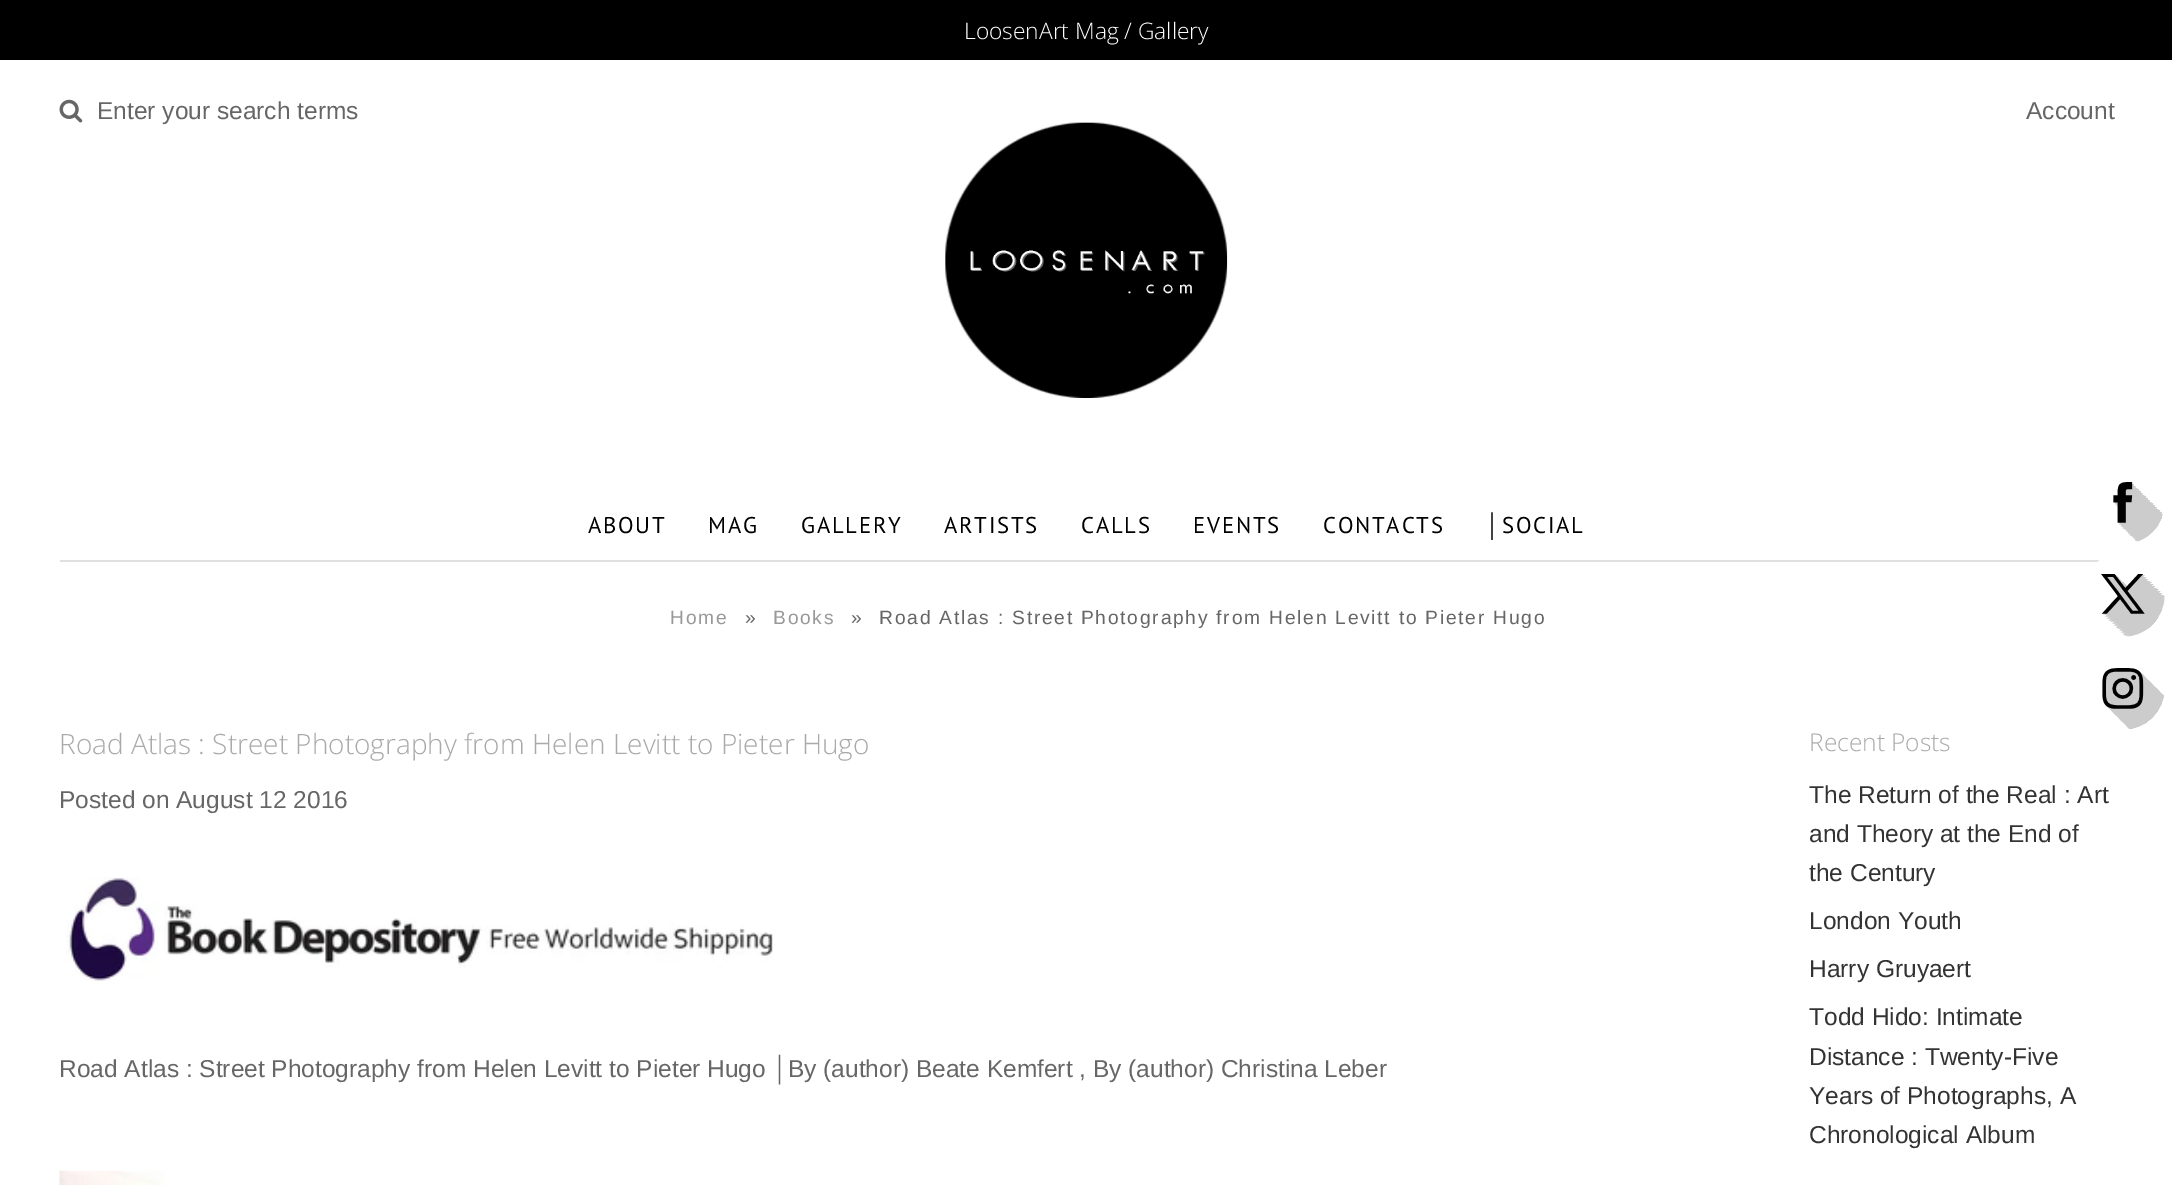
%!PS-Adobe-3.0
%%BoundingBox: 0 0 2172 1185
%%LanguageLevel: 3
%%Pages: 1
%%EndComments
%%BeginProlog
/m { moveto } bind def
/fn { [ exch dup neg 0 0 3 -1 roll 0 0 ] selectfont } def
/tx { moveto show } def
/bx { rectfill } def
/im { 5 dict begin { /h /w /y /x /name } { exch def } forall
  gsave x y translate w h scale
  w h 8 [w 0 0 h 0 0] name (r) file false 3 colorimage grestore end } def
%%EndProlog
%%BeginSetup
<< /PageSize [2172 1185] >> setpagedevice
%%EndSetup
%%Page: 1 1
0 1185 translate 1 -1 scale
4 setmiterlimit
1 setgray
0 0 2172 1185 bx
0 setgray
0 0 2172 60 bx
/OpenSans-Light 22.75 fn
1 setgray
(LoosenArt Mag / Gallery) 964 39 tx
(image0.raw) 59 99 24 24 im
/LiberationSans-Regular 24.5 fn
0.4 setgray
(Enter your search terms) 97 119 tx
(Account) 2026 119 tx
(image1.raw) 945 122 283 276 im
0.878 setgray
60 560 2040 2 bx
/PTSans-Regular 22.75 fn
0 setgray
588 533 m 1.75 0 (ABOUT) ashow
708 533 m 1.75 0 (MAG) ashow
801 533 m 1.75 0 (GALLERY) ashow
944 533 m 1.75 0 (ARTISTS) ashow
1081 533 m 1.75 0 (CALLS) ashow
1193 533 m 1.75 0 (EVENTS) ashow
1323 533 m 1.75 0 (CONTACTS) ashow
/LiberationSans-Regular 22.75 fn
1486 533 m 1.75 0 (│) ashow
/PTSans-Regular 22.75 fn
1502 533 m 1.75 0 (SOCIAL) ashow
/LiberationSans-Regular 19.25 fn
0.6 setgray
670 624 m 1.75 0 (Home) ashow
0.4 setgray
745 624 m 1.75 0 (») ashow
0.6 setgray
773 624 m 1.75 0 (Books) ashow
0.4 setgray
851 624 m 1.75 0 (») ashow
879 624 m 1.75 0 (Road Atlas : Street Photography from Helen Levitt to Pieter Hugo) ashow
/OpenSans-Light 28 fn
0.667 setgray
(Road Atlas : Street Photography from Helen Levitt to Pieter Hugo) 59 754 tx
/LiberationSans-Regular 24.5 fn
0.4 setgray
(Posted on August 12 2016) 59 808 tx
(image2.raw) 66 877 707 104 im
(Road Atlas : Street Photography from Helen Levitt to Pieter Hugo │By \(author\) Beate Kemfert , By \(author\) Christina Leber) 59 1077 tx
(image3.raw) 59 1170 106 15 im
/OpenSans-Light 24.5 fn
0.667 setgray
(Recent Posts) 1809 751 tx
/LiberationSans-Regular 24.5 fn
0.2 setgray
(The Return of the Real : Art) 1809 803 tx
(and Theory at the End of) 1809 842 tx
(the Century) 1809 881 tx
(London Youth) 1809 929 tx
(Harry Gruyaert) 1809 977 tx
(Todd Hido: Intimate) 1809 1025 tx
(Distance : Twenty-Five) 1809 1065 tx
(Years of Photographs, A) 1809 1104 tx
(Chronological Album) 1809 1143 tx
(image4.raw) 2097 482 68 247 im
showpage
%%EOF
